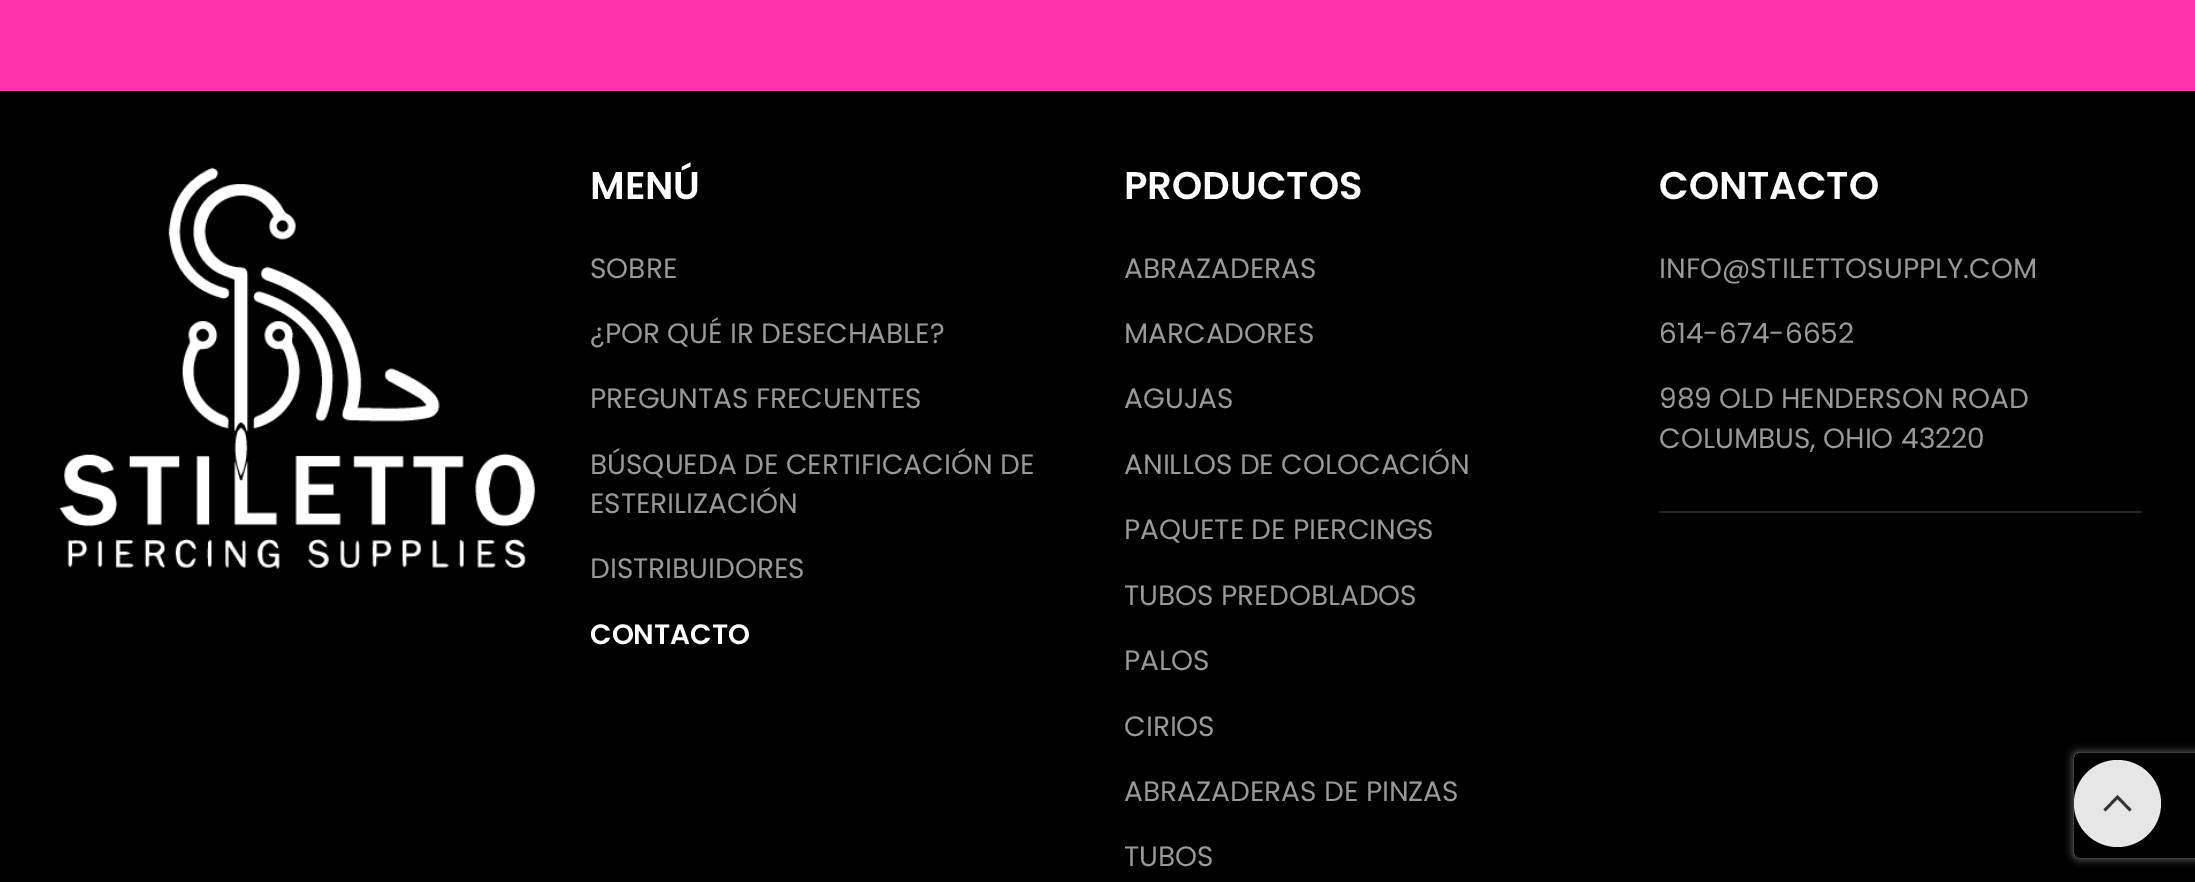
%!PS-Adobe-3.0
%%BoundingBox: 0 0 2195 882
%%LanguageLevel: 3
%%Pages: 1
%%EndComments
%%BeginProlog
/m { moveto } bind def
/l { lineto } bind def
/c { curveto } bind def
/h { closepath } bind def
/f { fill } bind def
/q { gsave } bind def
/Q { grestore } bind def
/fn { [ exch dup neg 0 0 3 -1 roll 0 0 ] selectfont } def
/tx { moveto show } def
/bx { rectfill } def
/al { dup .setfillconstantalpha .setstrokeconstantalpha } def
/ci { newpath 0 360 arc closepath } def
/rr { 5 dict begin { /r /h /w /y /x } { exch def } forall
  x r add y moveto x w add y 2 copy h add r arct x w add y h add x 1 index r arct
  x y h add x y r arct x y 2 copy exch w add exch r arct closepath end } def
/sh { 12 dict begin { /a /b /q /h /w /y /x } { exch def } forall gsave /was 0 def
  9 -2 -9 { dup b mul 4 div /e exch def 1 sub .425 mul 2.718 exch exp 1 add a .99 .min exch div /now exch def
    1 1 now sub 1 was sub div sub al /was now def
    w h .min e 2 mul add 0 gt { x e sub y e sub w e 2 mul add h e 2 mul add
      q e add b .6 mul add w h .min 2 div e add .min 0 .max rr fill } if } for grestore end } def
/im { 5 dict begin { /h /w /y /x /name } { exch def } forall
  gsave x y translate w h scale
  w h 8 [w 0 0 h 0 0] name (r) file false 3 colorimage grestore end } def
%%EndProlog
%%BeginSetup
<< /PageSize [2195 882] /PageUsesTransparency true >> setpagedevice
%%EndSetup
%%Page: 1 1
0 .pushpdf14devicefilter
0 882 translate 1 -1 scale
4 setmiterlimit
0 setgray
0 0 2195 882 bx
1 0.204 0.675 setrgbcolor
-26 -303 m -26 -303 172 -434 571 -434 c 970 -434 1226 -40 1625 -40 c 2024 -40 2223 -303 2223 -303 c 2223 91 l -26 91 l h f
(image0.raw) 59 167 477 402 im
/Poppins-SemiBold 38.5 fn
1 setgray
(MENÚ) 590 199 tx
/Poppins-Regular 28 fn
0.6 setgray
(SOBRE) 590 278 tx
(¿POR QUÉ IR DESECHABLE?) 590 343 tx
(PREGUNTAS FRECUENTES) 590 408 tx
(BÚSQUEDA DE CERTIFICACIÓN DE) 590 474 tx
(ESTERILIZACIÓN) 590 513 tx
(DISTRIBUIDORES) 590 578 tx
/Poppins-SemiBold 28 fn
1 setgray
(CONTACTO) 590 644 tx
/Poppins-SemiBold 38.5 fn
(PRODUCTOS) 1124 199 tx
/Poppins-Regular 28 fn
0.6 setgray
(ABRAZADERAS) 1124 278 tx
(MARCADORES) 1124 343 tx
(AGUJAS) 1124 408 tx
(ANILLOS DE COLOCACIÓN) 1124 474 tx
(PAQUETE DE PIERCINGS) 1124 539 tx
(TUBOS PREDOBLADOS) 1124 605 tx
(PALOS) 1124 670 tx
(CIRIOS) 1124 736 tx
(ABRAZADERAS DE PINZAS) 1124 801 tx
(TUBOS) 1124 866 tx
0.149 setgray
1659 511 483 2 bx
/Poppins-SemiBold 38.5 fn
1 setgray
(CONTACTO) 1659 199 tx
/Poppins-Regular 28 fn
0.6 setgray
(INFO@STILETTOSUPPLY.COM) 1659 278 tx
(614-674-6652) 1659 343 tx
(989 OLD HENDERSON ROAD) 1659 408 tx
(COLUMBUS, OHIO 43220) 1659 448 tx
q
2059 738 m 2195 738 l 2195 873 l 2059 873 l h 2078 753 m 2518 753 l 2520 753 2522 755 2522 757 c 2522 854 l 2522 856 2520 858 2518 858 c 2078 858 l 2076 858 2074 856 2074 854 c 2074 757 l 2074 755 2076 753 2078 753 c h eoclip newpath
0.502 setgray
2074 753 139 105 4 4.5 1 sh
Q
0.902 setgray
2117.5 803.5 43.5 ci f
0.2 setgray
2117.5 795 m 2131.5 809.5 l 2129.5 811.5 l 2117.5 799 l 2105.5 811.5 l 2103.5 809.5 l h f
.poppdf14devicefilter showpage
%%EOF
